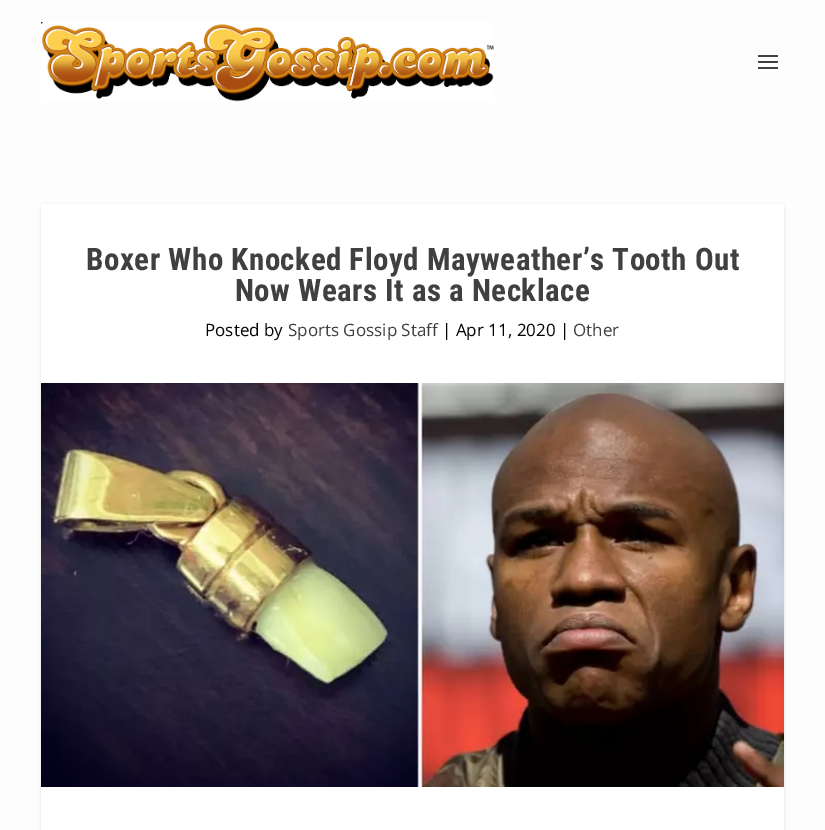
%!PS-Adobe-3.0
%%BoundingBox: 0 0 825 830
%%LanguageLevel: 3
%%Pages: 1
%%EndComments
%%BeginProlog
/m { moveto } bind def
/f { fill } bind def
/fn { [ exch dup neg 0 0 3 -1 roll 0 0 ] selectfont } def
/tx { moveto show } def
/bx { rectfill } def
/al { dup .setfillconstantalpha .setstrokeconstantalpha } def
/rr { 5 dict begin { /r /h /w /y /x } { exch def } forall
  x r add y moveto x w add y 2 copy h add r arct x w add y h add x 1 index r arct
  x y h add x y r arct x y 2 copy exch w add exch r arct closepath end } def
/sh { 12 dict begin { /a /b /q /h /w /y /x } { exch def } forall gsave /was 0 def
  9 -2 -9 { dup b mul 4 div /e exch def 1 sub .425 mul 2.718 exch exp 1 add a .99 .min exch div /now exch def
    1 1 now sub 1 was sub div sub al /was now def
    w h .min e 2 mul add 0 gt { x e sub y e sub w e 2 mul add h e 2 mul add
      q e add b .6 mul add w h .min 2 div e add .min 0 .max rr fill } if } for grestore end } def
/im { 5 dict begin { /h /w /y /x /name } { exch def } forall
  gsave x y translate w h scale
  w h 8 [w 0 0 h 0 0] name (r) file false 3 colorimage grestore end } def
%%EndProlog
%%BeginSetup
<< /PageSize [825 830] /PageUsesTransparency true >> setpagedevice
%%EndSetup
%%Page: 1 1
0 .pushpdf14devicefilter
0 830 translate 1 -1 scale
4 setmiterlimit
0.992 0.992 0.996 setrgbcolor
0 0 825 830 bx
(image0.raw) 41 22 453 80 im
0.251 setgray
758 55 20 2 1 rr f
758 61 20 2 1 rr f
758 67 20 2 1 rr f
0 setgray
41 205 743 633 3 1.5 0.1 sh
1 setgray
41 204 743 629 3 rr f
/RobotoCondensed-Bold 31 fn
0.251 setgray
86 270 m 0.5 0 (Boxer Who Knocked Floyd Mayweather’s Tooth Out) ashow
235 301 m 0.5 0 (Now Wears It as a Necklace) ashow
/OpenSans-Regular 17 fn
0.012 setgray
(Posted by) 205 336 tx
0.251 setgray
(Sports Gossip Staff) 288 336 tx
0.012 setgray
(| Apr 11, 2020 |) 442 336 tx
0.251 setgray
(Other) 573 336 tx
(image1.raw) 41 383 743 404 im
.poppdf14devicefilter showpage
%%EOF
